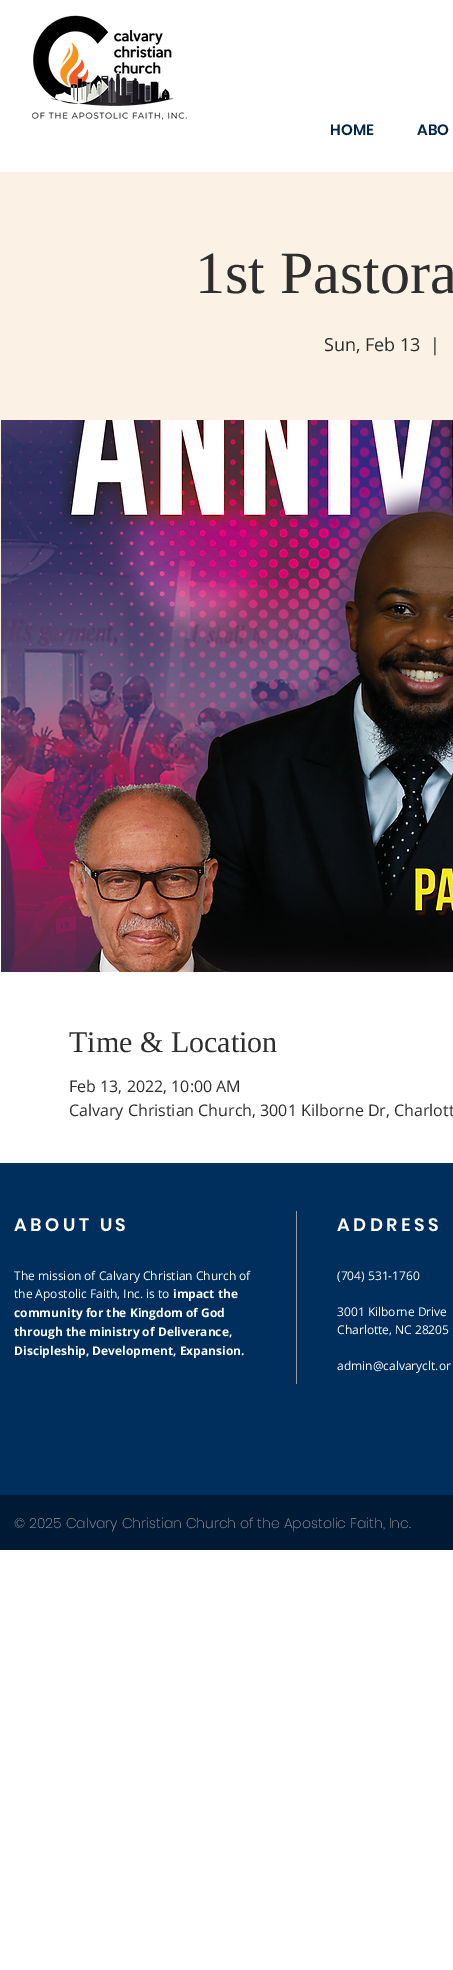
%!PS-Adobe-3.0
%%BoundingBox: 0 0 453 1970
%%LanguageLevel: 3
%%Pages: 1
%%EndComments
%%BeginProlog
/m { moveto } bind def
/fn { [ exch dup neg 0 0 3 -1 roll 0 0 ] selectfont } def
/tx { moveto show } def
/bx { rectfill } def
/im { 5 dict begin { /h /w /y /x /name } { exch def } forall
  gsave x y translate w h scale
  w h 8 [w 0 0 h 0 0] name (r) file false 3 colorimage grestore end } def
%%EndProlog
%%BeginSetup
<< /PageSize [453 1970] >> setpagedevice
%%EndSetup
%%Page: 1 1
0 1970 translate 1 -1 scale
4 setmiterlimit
1 setgray
0 0 453 1970 bx
(image0.raw) 31 15 156 105 im
/Poppins-SemiBold 15 fn
0.004 0.149 0.275 setrgbcolor
(HOME) 330 135 tx
(ABO) 417 135 tx
0.984 0.949 0.898 setrgbcolor
0 172 453 524 bx
/LiberationSerif-Regular 60 fn
0.184 0.18 0.18 setrgbcolor
(1st Pastora) 195 293 tx
/OpenSans-Regular 18 fn
(Sun, Feb 13) 324 351 tx
(|) 430 351 tx
(image1.raw) 1 420 452 552 im
/LiberationSerif-Regular 30 fn
(Time & Location) 69 1052 tx
/OpenSans-Regular 16 fn
(Feb 13, 2022, 10:00 AM) 69 1092 tx
(Calvary Christian Church, 3001 Kilborne Dr, Charlott) 69 1116 tx
0 0.18 0.365 setrgbcolor
0 1163 453 332 bx
/Poppins-SemiBold 18 fn
1 setgray
14 1231 m 3.5 0 (ABOUT US) ashow
0.6 setgray
296 1211 1 173 bx
1 setgray
337 1231 m 3.5 0 (ADDRESS) ashow
/OpenSans-Regular 12 fn
(The mission of Calvary Christian Church of) 14 1280 tx
(the Apostolic Faith, Inc. is to) 14 1298 tx
/OpenSans-Bold 12 fn
(impact the) 173 1298 tx
(community for the Kingdom of God) 14 1317 tx
(through the ministry of Deliverance,) 14 1336 tx
(Discipleship, Development, Expansion.) 14 1355 tx
/OpenSans-Regular 12 fn
(\(704\) 531-1760) 337 1280 tx
(3001 Kilborne Drive) 337 1316 tx
(Charlotte, NC 28205) 337 1334 tx
(admin@calvaryclt.or) 337 1370 tx
0 0.102 0.208 setrgbcolor
0 1495 453 55 bx
/Poppins-ExtraLight 14 fn
0.627 0.627 0.624 setrgbcolor
(© 2025 Calvary Christian Church of the Apostolic Faith, Inc.) 14 1528 tx
showpage
%%EOF
